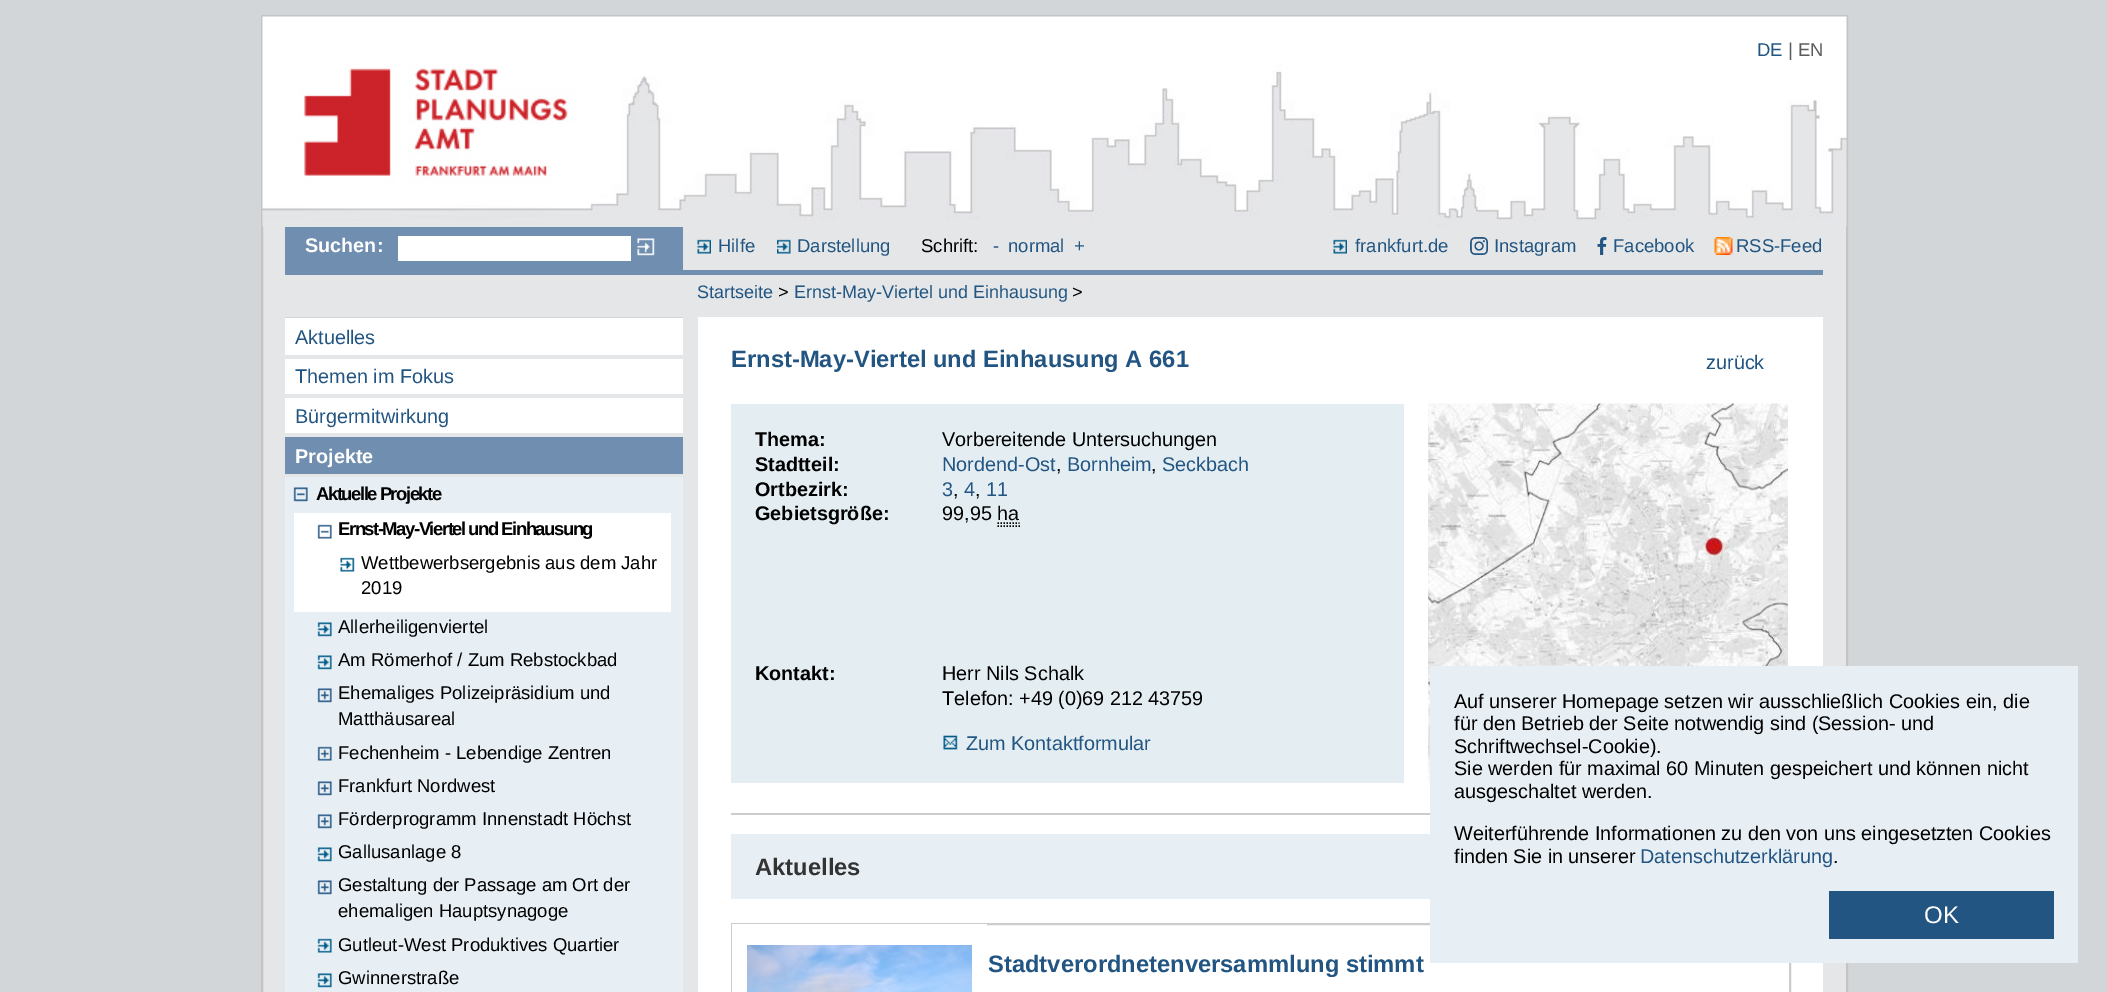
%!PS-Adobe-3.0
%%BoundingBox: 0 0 2107 992
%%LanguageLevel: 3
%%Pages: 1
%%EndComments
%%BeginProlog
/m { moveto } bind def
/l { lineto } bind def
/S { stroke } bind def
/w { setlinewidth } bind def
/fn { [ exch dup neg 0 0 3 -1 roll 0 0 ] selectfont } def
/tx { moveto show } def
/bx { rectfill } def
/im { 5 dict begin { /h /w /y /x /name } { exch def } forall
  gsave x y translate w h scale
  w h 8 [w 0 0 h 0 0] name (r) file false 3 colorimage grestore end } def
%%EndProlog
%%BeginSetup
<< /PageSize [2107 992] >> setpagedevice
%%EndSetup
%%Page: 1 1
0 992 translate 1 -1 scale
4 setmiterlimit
0.827 0.839 0.851 setrgbcolor
0 0 2107 992 bx
0.894 0.902 0.91 setrgbcolor
263 226 1583 766 bx
0.769 0.769 0.776 setrgbcolor
2 w
262 16 1585 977 rectstroke
(image0.raw) 262 16 1585 211 im
/LiberationSans-Regular 18.5 fn
0.133 0.333 0.51 setrgbcolor
(DE) 1757 56 tx
0.357 setgray
(| EN) 1788 56 tx
0.439 0.557 0.686 setrgbcolor
285 270 1538 5 bx
285 227 398 43 bx
/LiberationSans-Bold 19.8 fn
1 setgray
(Suchen:) 305 252 tx
398 236 233 25 bx
(image1.raw) 637 238 18 18 im
(image2.raw) 697 239 14 15 im
/LiberationSans-Regular 18.5 fn
0.133 0.333 0.51 setrgbcolor
(Hilfe) 718 252 tx
(image3.raw) 777 239 14 15 im
(Darstellung) 797 252 tx
0 setgray
(Schrift:) 921 252 tx
0.133 0.333 0.51 setrgbcolor
(-) 993 252 tx
(normal) 1008 252 tx
(+) 1074 252 tx
(image2.raw) 1333 239 14 15 im
(frankfurt.de) 1355 252 tx
(image4.raw) 1470 237 18 18 im
(Instagram) 1494 252 tx
(image5.raw) 1597 237 10 18 im
(Facebook) 1613 252 tx
(image6.raw) 1714 237 19 18 im
(RSS-Feed) 1736 252 tx
/LiberationSans-Regular 18 fn
(Startseite) 697 298 tx
0 setgray
(>) 778 298 tx
0.133 0.333 0.51 setrgbcolor
(Ernst-May-Viertel und Einhausung) 794 298 tx
0 setgray
(>) 1072 298 tx
0.827 0.839 0.851 setrgbcolor
285 317 398 1 bx
1 setgray
285 318 398 37 bx
/LiberationSans-Regular 19.8 fn
0.133 0.333 0.51 setrgbcolor
(Aktuelles) 295 344 tx
1 setgray
285 359 398 35 bx
0.133 0.333 0.51 setrgbcolor
(Themen im Fokus) 295 383 tx
1 setgray
285 398 398 35 bx
0.133 0.333 0.51 setrgbcolor
(Bürgermitwirkung) 295 423 tx
0.439 0.557 0.686 setrgbcolor
285 437 398 37 bx
/LiberationSans-Bold 19.8 fn
1 setgray
(Projekte) 295 463 tx
0.906 0.937 0.961 setrgbcolor
285 477 398 515 bx
(image7.raw) 293 487 15 15 im
/LiberationSans-Bold 18.5 fn
0 setgray
316 500 m -1.5 0 (Aktuelle Projekte) ashow
1 setgray
294 513 377 99 bx
(image8.raw) 317 524 15 15 im
0 setgray
338 535 m -1.5 0 (Ernst-May-Viertel und Einhausung) ashow
(image9.raw) 340 557 15 15 im
/LiberationSans-Regular 18.5 fn
(Wettbewerbsergebnis aus dem Jahr) 361 569 tx
(2019) 361 594 tx
(image10.raw) 317 622 15 15 im
(Allerheiligenviertel) 338 633 tx
(image10.raw) 317 655 15 15 im
(Am Römerhof / Zum Rebstockbad) 338 666 tx
(image11.raw) 317 688 15 15 im
(Ehemaliges Polizeipräsidium und) 338 699 tx
(Matthäusareal) 338 725 tx
(image12.raw) 317 746 15 15 im
(Fechenheim - Lebendige Zentren) 338 759 tx
(image11.raw) 317 781 15 15 im
(Frankfurt Nordwest) 338 792 tx
(image11.raw) 317 814 15 15 im
(Förderprogramm Innenstadt Höchst) 338 825 tx
(image10.raw) 317 847 15 15 im
(Gallusanlage 8) 338 858 tx
(image11.raw) 317 880 15 15 im
(Gestaltung der Passage am Ort der) 338 891 tx
(ehemaligen Hauptsynagoge) 338 917 tx
(image13.raw) 317 938 15 15 im
(Gutleut-West Produktives Quartier) 338 951 tx
(image10.raw) 317 973 15 15 im
(Gwinnerstraße) 338 984 tx
1 setgray
698 317 1125 675 bx
/LiberationSans-Bold 23.75 fn
0.133 0.333 0.51 setrgbcolor
(Ernst-May-Viertel und Einhausung A 661) 731 367 tx
/LiberationSans-Regular 19.8 fn
(zurück) 1706 369 tx
0.8 setgray
731 813 699 2 bx
0.894 0.929 0.949 setrgbcolor
731 404 673 379 bx
/LiberationSans-Bold 19.8 fn
0 setgray
(Thema:) 755 446 tx
/LiberationSans-Regular 19.8 fn
(Vorbereitende Untersuchungen) 942 446 tx
/LiberationSans-Bold 19.8 fn
(Stadtteil:) 755 471 tx
/LiberationSans-Regular 19.8 fn
0.133 0.333 0.51 setrgbcolor
(Nordend-Ost) 942 471 tx
0 setgray
(,) 1056 471 tx
0.133 0.333 0.51 setrgbcolor
(Bornheim) 1067 471 tx
0 setgray
(,) 1151 471 tx
0.133 0.333 0.51 setrgbcolor
(Seckbach) 1162 471 tx
/LiberationSans-Bold 19.8 fn
0 setgray
(Ortbezirk:) 755 496 tx
/LiberationSans-Regular 19.8 fn
0.133 0.333 0.51 setrgbcolor
(3) 942 496 tx
0 setgray
(,) 953 496 tx
0.133 0.333 0.51 setrgbcolor
(4) 964 496 tx
0 setgray
(,) 975 496 tx
0.133 0.333 0.51 setrgbcolor
(11) 986 496 tx
/LiberationSans-Bold 19.8 fn
0 setgray
(Gebietsgröße:) 755 520 tx
/LiberationSans-Regular 19.8 fn
(99,95 ha) 942 520 tx
1.5 w
[1.5 1.5] 0 setdash
997.5 526 m 1020 526 l 997.5 523 m 1019.5 523 l S
/LiberationSans-Bold 19.8 fn
(Kontakt:) 755 680 tx
/LiberationSans-Regular 19.8 fn
(Herr Nils Schalk) 942 680 tx
(Telefon: +49 \(0\)69 212 43759) 942 705 tx
(image14.raw) 943 735 15 15 im
0.133 0.333 0.51 setrgbcolor
(Zum Kontaktformular) 966 750 tx
(image15.raw) 1428 403 360 380 im
0.906 0.933 0.957 setrgbcolor
731 834 699 65 bx
/LiberationSans-Bold 23.75 fn
0.2 setgray
(Aktuelles) 755 875 tx
0.8 setgray
2 w
[] 0 setdash
732 924 1058 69 rectstroke
1 setgray
732 924 255 68 bx
(image16.raw) 747 945 225 47 im
0.133 0.333 0.51 setrgbcolor
(Stadtverordnetenversammlung stimmt) 988 972 tx
0.906 0.933 0.957 setrgbcolor
1430 666 648 297 bx
/LiberationSans-Regular 19.8 fn
0 setgray
(Auf unserer Homepage setzen wir ausschließlich Cookies ein, die) 1454 708 tx
(für den Betrieb der Seite notwendig sind \(Session- und) 1454 730 tx
(Schriftwechsel-Cookie\).) 1454 753 tx
(Sie werden für maximal 60 Minuten gespeichert und können nicht) 1454 775 tx
(ausgeschaltet werden.) 1454 798 tx
(Weiterführende Informationen zu den von uns eingesetzten Cookies) 1454 840 tx
(finden Sie in unserer) 1454 863 tx
0.133 0.333 0.51 setrgbcolor
(Datenschutzerklärung) 1640 863 tx
0 setgray
(.) 1833 863 tx
0.133 0.333 0.51 setrgbcolor
1829 891 225 48 bx
/LiberationSans-Regular 24 fn
1 setgray
(OK) 1924 923 tx
showpage
%%EOF
